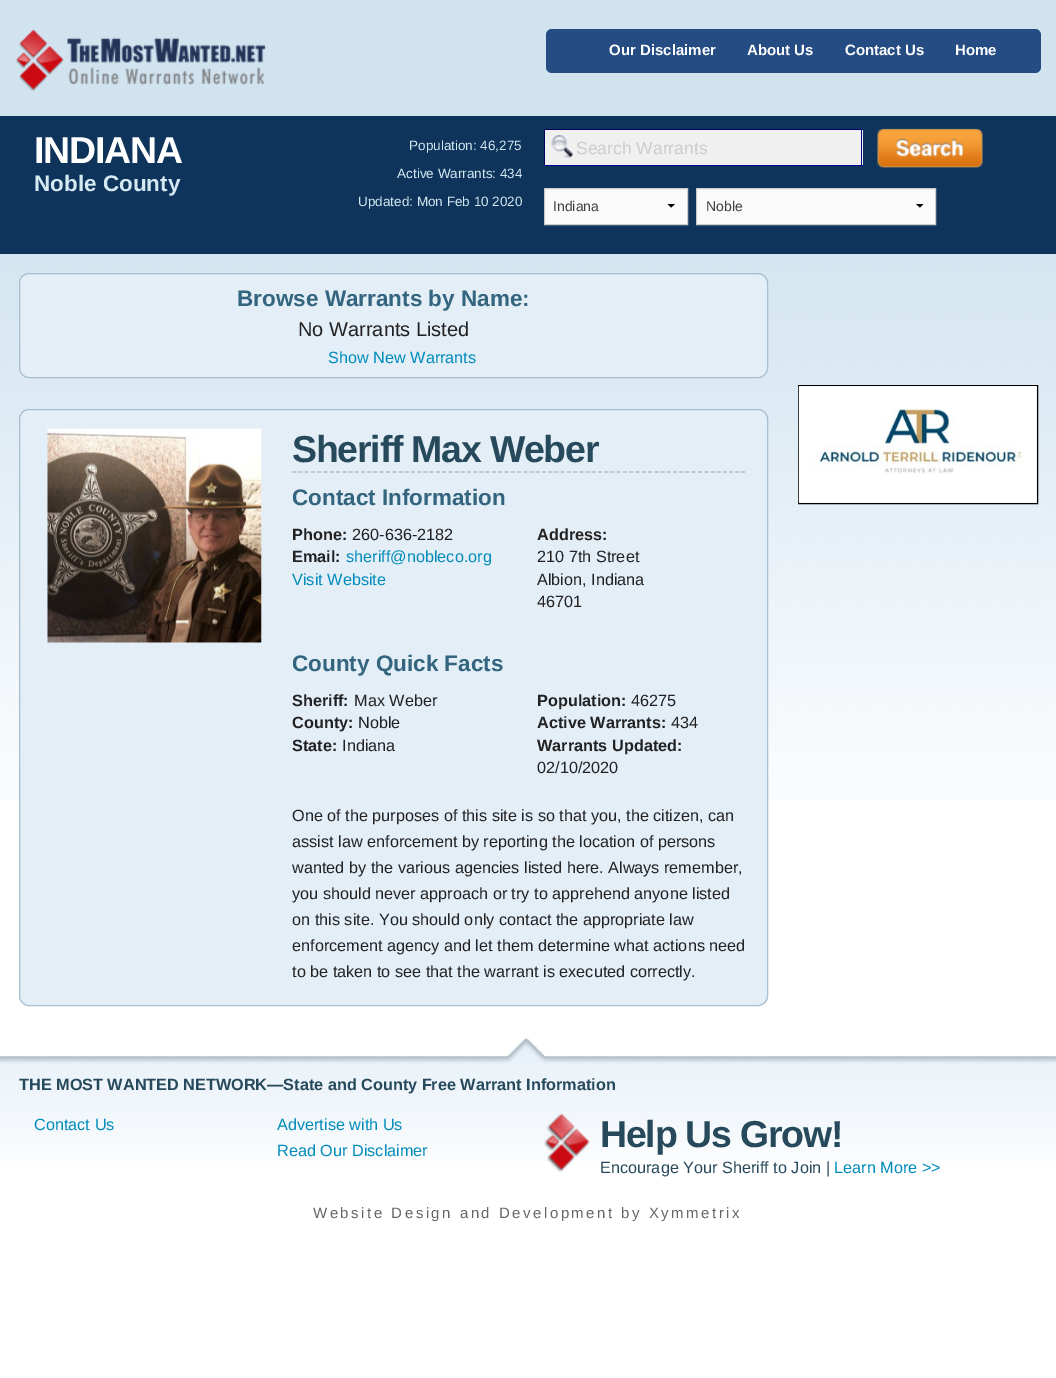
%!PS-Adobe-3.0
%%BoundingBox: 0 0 1056 1378
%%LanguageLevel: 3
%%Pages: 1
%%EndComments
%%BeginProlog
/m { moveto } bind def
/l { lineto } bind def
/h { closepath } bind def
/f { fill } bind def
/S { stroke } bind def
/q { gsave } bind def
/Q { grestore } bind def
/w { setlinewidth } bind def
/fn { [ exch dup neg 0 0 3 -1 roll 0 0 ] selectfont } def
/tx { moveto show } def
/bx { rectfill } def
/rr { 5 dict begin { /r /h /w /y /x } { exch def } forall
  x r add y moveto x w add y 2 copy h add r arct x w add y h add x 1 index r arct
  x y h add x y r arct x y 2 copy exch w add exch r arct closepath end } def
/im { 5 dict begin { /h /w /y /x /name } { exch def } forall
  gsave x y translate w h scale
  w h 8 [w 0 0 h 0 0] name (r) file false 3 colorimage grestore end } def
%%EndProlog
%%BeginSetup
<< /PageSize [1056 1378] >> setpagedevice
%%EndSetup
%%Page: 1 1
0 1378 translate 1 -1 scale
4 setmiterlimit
1 setgray
0 0 1056 1378 bx
(image0.raw) 0 0 1056 800 im
(image1.raw) 16 29 250 63 im
0.145 0.302 0.514 setrgbcolor
546 29 495 44 6 rr f
/LiberationSans-Bold 15 fn
1 setgray
(Our Disclaimer) 609 55 tx
(About Us) 747 55 tx
(Contact Us) 845 55 tx
(Home) 955 55 tx
0.055 0.204 0.357 setrgbcolor
0 116 1056 138 bx
/LiberationSans-Bold 37.5 fn
1 setgray
34 163 m -1.25 0 (INDIANA) ashow
/LiberationSans-Bold 22.5 fn
0.835 0.914 0.949 setrgbcolor
(Noble County) 34 191 tx
/LiberationSans-Regular 13.5 fn
(Population: 46,275) 409 150 tx
(Active Warrants: 434) 397 178 tx
(Updated: Mon Feb 10 2020) 358 206 tx
0.941 setgray
545 130 318 35 bx
(image2.raw) 551 135 23 23 im
0 0 0.365 setrgbcolor
544 129 319 1 bx
0 0 0.545 setrgbcolor
861 129 1 37 bx
544 165 319 1 bx
0 0 0.365 setrgbcolor
544 129 1 37 bx
/LiberationSans-Regular 17.5 fn
0.8 setgray
(Search Warrants) 576 154 tx
(image3.raw) 877 128 106 40 im
0.98 setgray
545 189 142 35 bx
0 setgray
675 204 m 671 207.5 l 667.5 204 l h f
0.8 setgray
544.5 188.5 143 36 rectstroke
/LiberationSans-Regular 14 fn
0.247 setgray
(Indiana) 553 211 tx
0.98 setgray
697 189 238 35 bx
0 setgray
923.5 204 m 920 207.5 l 916 204 l h f
0.8 setgray
696.5 188.5 239 36 rectstroke
0.247 setgray
(Noble) 706 211 tx
0.894 0.933 0.969 setrgbcolor
19.5 273.5 748 104 9.5 rr q f Q
0.651 0.745 0.804 setrgbcolor
S
/LiberationSans-Bold 22.5 fn
0.2 0.396 0.498 setrgbcolor
(Browse Warrants by Name:) 237 306 tx
/LiberationSans-Regular 20 fn
0.133 setgray
(No Warrants Listed) 298 336 tx
/LiberationSans-Regular 16.25 fn
0 0.549 0.729 setrgbcolor
(Show New Warrants) 328 363 tx
0.894 0.933 0.969 setrgbcolor
19.5 409.5 748 596 9.5 rr q f Q
0.651 0.745 0.804 setrgbcolor
S
(image4.raw) 47 428 215 215 im
1.2 w
[3.75 2.49] 0 setdash
292.5 472 m 745 472 l S
/LiberationSans-Bold 37.5 fn
0.149 0.286 0.357 setrgbcolor
292 462 m -1.25 0 (Sheriff Max Weber) ashow
/LiberationSans-Bold 22.5 fn
0.2 0.396 0.498 setrgbcolor
(Contact Information) 292 505 tx
/LiberationSans-Bold 16.25 fn
0.133 setgray
(Phone:) 292 540 tx
/LiberationSans-Regular 16.25 fn
(260-636-2182) 352 540 tx
/LiberationSans-Bold 16.25 fn
(Email:) 292 562 tx
/LiberationSans-Regular 16.25 fn
0 0.549 0.729 setrgbcolor
(sheriff@nobleco.org) 346 562 tx
(Visit Website) 292 585 tx
/LiberationSans-Bold 16.25 fn
0.133 setgray
(Address:) 537 540 tx
/LiberationSans-Regular 16.25 fn
(210 7th Street) 537 562 tx
(Albion, Indiana) 537 585 tx
(46701) 537 607 tx
/LiberationSans-Bold 22.5 fn
0.2 0.396 0.498 setrgbcolor
(County Quick Facts) 292 671 tx
/LiberationSans-Bold 16.25 fn
0.133 setgray
(Sheriff:) 292 706 tx
/LiberationSans-Regular 16.25 fn
(Max Weber) 354 706 tx
/LiberationSans-Bold 16.25 fn
(County:) 292 728 tx
/LiberationSans-Regular 16.25 fn
(Noble) 358 728 tx
/LiberationSans-Bold 16.25 fn
(State:) 292 751 tx
/LiberationSans-Regular 16.25 fn
(Indiana) 342 751 tx
/LiberationSans-Bold 16.25 fn
(Population:) 537 706 tx
/LiberationSans-Regular 16.25 fn
(46275) 631 706 tx
/LiberationSans-Bold 16.25 fn
(Active Warrants:) 537 728 tx
/LiberationSans-Regular 16.25 fn
(434) 671 728 tx
/LiberationSans-Bold 16.25 fn
(Warrants Updated:) 537 751 tx
/LiberationSans-Regular 16.25 fn
(02/10/2020) 537 773 tx
(One of the purposes of this site is so that you, the citizen, can) 292 821 tx
(assist law enforcement by reporting the location of persons) 292 847 tx
(wanted by the various agencies listed here. Always remember,) 292 873 tx
(you should never approach or try to apprehend anyone listed) 292 899 tx
(on this site. You should only contact the appropriate law) 292 925 tx
(enforcement agency and let them determine what actions need) 292 951 tx
(to be taken to see that the warrant is executed correctly.) 292 977 tx
0 setgray
1 w
[] 0 setdash
798.5 385.5 239 118 rectstroke
(image5.raw) 798 386 239 117 im
(image6.raw) 0 1038 1056 123 im
/LiberationSans-Bold 16.25 fn
0.149 0.286 0.357 setrgbcolor
(THE MOST WANTED NETWORK—State and County Free Warrant Information) 19 1090 tx
/LiberationSans-Regular 16.25 fn
0 0.549 0.729 setrgbcolor
(Contact Us) 34 1130 tx
(Advertise with Us) 277 1130 tx
(Read Our Disclaimer) 277 1156 tx
(image7.raw) 543 1113 47 59 im
/LiberationSans-Bold 37.5 fn
0.149 0.286 0.357 setrgbcolor
600 1147 m -1.25 0 (Help Us Grow!) ashow
/LiberationSans-Regular 16.25 fn
(Encourage Your Sheriff to Join |) 600 1173 tx
0 0.549 0.729 setrgbcolor
(Learn More >>) 834 1173 tx
/LiberationSans-Regular 15 fn
0.4 setgray
313 1218 m 2.5 0 (Website Design and Development by Xymmetrix) ashow
showpage
%%EOF
